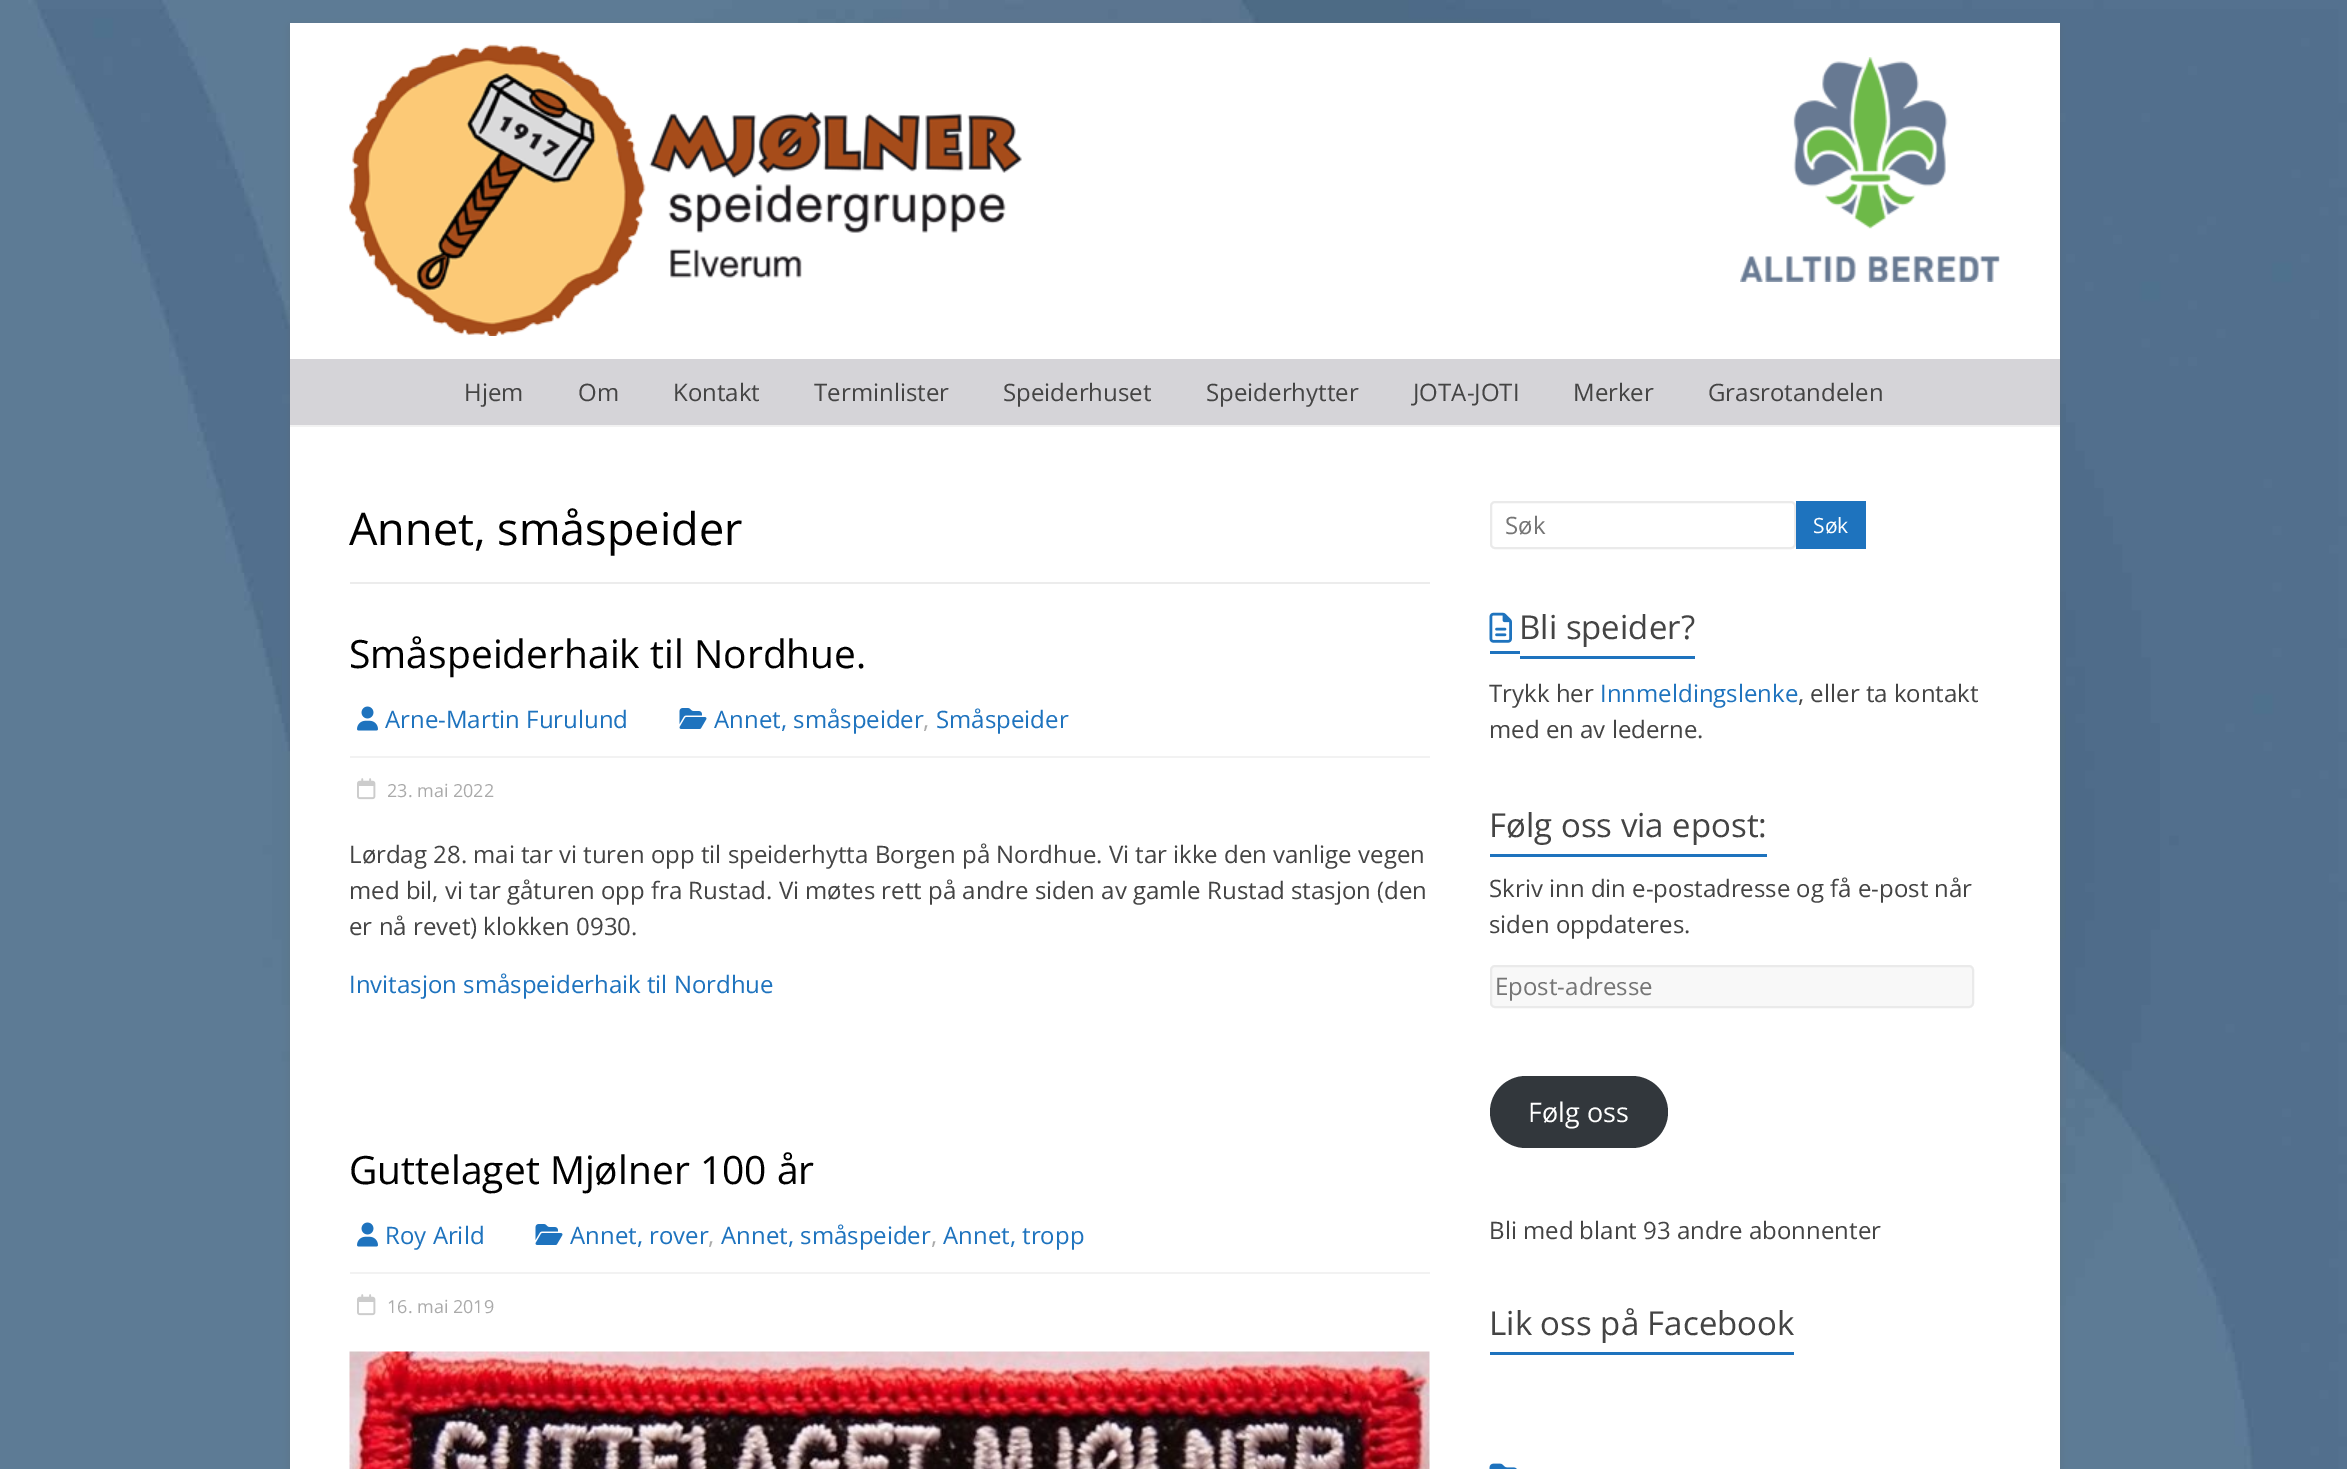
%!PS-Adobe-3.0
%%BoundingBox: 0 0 2347 1469
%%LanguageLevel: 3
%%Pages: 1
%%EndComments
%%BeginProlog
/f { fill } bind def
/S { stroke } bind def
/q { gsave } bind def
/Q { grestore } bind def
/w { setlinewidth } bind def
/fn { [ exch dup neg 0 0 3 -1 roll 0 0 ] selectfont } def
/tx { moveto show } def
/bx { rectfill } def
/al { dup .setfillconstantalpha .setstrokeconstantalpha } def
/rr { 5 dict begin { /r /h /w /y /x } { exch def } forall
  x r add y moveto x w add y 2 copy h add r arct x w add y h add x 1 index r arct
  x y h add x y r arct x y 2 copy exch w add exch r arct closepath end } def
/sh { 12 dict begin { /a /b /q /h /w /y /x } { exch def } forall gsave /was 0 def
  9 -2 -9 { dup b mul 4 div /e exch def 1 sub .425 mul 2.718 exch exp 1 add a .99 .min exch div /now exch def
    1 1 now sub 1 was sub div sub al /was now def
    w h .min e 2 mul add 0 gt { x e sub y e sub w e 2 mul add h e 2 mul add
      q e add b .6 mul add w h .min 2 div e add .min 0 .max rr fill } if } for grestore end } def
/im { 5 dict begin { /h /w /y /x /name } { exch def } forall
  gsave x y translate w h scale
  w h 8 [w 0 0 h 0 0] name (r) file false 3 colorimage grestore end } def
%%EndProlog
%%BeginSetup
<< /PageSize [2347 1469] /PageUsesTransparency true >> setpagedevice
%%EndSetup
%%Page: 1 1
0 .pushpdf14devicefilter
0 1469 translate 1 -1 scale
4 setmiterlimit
1 setgray
0 0 2347 1469 bx
(image0.raw) 0 0 2347 1469 im
0.392 setgray
290 26 1770 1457 0 4.5 0.3 sh
1 setgray
290 23 1770 1446 bx
0.949 setgray
290 425 1770 2 bx
(image1.raw) 349 44 673 292 im
(image2.raw) 1740 57 260 225 im
0.835 0.831 0.847 setrgbcolor
290 359 1770 66 bx
/OpenSans-Regular 24 fn
0.267 setgray
(Hjem) 464 401 tx
(Om) 578 401 tx
(Kontakt) 673 401 tx
(Terminlister) 814 401 tx
(Speiderhuset) 1003 401 tx
(Speiderhytter) 1206 401 tx
(JOTA-JOTI) 1413 401 tx
(Merker) 1573 401 tx
(Grasrotandelen) 1708 401 tx
0.925 setgray
350 582 1080 2 bx
/OpenSans-Regular 45 fn
0 setgray
(Annet, småspeider) 349 545 tx
/OpenSans-Regular 39 fn
(Småspeiderhaik til Nordhue.) 349 668 tx
(image3.raw) 357 706 21 25 im
/OpenSans-Regular 24 fn
0.118 0.451 0.745 setrgbcolor
(Arne-Martin Furulund) 385 728 tx
(image4.raw) 679 708 28 21 im
(Annet, småspeider) 714 728 tx
0.667 setgray
(,) 923 728 tx
0.118 0.451 0.745 setrgbcolor
(Småspeider) 936 728 tx
0.949 setgray
350 756 1080 2 bx
(image5.raw) 357 778 19 22 im
/OpenSans-Regular 18 fn
0.667 setgray
(23. mai 2022) 387 797 tx
/OpenSans-Regular 24 fn
0.267 setgray
(Lørdag 28. mai tar vi turen opp til speiderhytta Borgen på Nordhue. Vi tar ikke den vanlige vegen) 349 863 tx
(med bil, vi tar gåturen opp fra Rustad. Vi møtes rett på andre siden av gamle Rustad stasjon \(den) 349 899 tx
(er nå revet\) klokken 0930.) 349 935 tx
0.118 0.451 0.745 setrgbcolor
(Invitasjon småspeiderhaik til Nordhue) 349 993 tx
/OpenSans-Regular 39 fn
0 setgray
(Guttelaget Mjølner 100 år) 349 1184 tx
(image3.raw) 357 1222 21 25 im
/OpenSans-Regular 24 fn
0.118 0.451 0.745 setrgbcolor
(Roy Arild) 385 1244 tx
(image4.raw) 535 1224 28 21 im
(Annet, rover) 570 1244 tx
0.667 setgray
(,) 708 1244 tx
0.118 0.451 0.745 setrgbcolor
(Annet, småspeider) 721 1244 tx
0.667 setgray
(,) 931 1244 tx
0.118 0.451 0.745 setrgbcolor
(Annet, tropp) 943 1244 tx
0.949 setgray
350 1272 1080 2 bx
(image5.raw) 357 1294 19 22 im
/OpenSans-Regular 18 fn
0.667 setgray
(16. mai 2019) 387 1313 tx
(image6.raw) 349 1351 1081 118 im
0.918 setgray
2 w
1491 502 304 46 4 rr S
/OpenSans-Regular 24 fn
0.459 setgray
(Søk) 1505 534 tx
0.118 0.451 0.745 setrgbcolor
1796 501 70 48 bx
/OpenSans-Regular 21 fn
1 setgray
(Søk) 1813 533 tx
(image7.raw) 1489 612 23 31 im
/OpenSans-Regular 33 fn
0.267 setgray
(Bli speider?) 1519 639 tx
0.118 0.451 0.745 setrgbcolor
1490 651 30 3 bx
1520 656 175 3 bx
/OpenSans-Regular 24 fn
0.267 setgray
(Trykk her) 1489 702 tx
0.118 0.451 0.745 setrgbcolor
(Innmeldingslenke) 1600 702 tx
0.267 setgray
(, eller ta kontakt) 1798 702 tx
(med en av lederne.) 1489 738 tx
/OpenSans-Regular 33 fn
(Følg oss via epost:) 1489 837 tx
0.118 0.451 0.745 setrgbcolor
1490 854 277 3 bx
/OpenSans-Regular 24 fn
0.267 setgray
(Skriv inn din e-postadresse og få e-post når) 1489 897 tx
(siden oppdateres.) 1489 933 tx
0.973 setgray
1491 966 482 41 4 rr q f Q
0.918 setgray
S
0.459 setgray
(Epost-adresse) 1495 995 tx
0.196 0.216 0.235 setrgbcolor
1490 1076 178 72 36 rr f
/OpenSans-Regular 27 fn
1 setgray
(Følg oss) 1528 1122 tx
/OpenSans-Regular 24 fn
0.267 setgray
(Bli med blant 93 andre abonnenter) 1489 1239 tx
/OpenSans-Regular 33 fn
(Lik oss på Facebook) 1489 1335 tx
0.118 0.451 0.745 setrgbcolor
1490 1352 304 3 bx
(image8.raw) 1489 1463 28 6 im
.poppdf14devicefilter showpage
%%EOF
